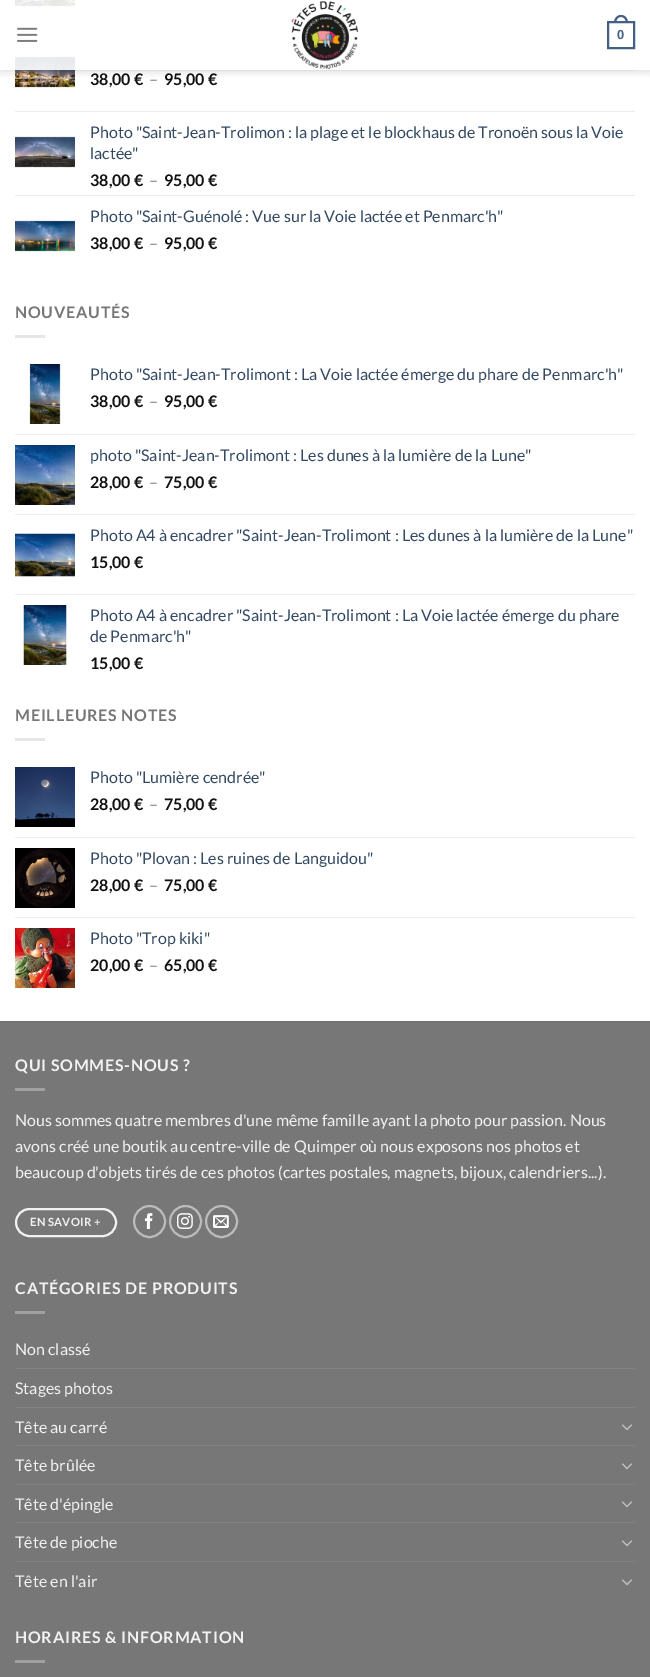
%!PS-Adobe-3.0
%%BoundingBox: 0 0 650 1677
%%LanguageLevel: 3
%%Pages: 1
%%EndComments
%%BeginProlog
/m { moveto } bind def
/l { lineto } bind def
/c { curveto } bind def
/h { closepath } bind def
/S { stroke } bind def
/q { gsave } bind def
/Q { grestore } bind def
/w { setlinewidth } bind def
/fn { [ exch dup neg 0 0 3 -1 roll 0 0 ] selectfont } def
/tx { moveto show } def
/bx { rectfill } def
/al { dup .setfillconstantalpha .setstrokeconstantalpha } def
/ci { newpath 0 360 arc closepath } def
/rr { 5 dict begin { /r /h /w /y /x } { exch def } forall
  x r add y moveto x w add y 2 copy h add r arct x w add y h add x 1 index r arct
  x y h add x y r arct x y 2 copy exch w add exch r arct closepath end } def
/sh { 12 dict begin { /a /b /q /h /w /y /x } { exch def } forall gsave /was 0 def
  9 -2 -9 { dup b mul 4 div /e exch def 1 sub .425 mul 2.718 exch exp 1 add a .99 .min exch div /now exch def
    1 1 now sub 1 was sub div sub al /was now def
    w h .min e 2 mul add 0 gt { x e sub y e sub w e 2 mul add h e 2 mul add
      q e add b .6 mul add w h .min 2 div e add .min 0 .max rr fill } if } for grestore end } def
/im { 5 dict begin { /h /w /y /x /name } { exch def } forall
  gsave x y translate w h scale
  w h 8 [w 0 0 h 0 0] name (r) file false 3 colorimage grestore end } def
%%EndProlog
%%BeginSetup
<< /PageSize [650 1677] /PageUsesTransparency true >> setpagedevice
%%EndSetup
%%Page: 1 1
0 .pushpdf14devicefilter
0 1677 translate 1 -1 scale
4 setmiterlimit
1 setgray
0 0 650 1677 bx
(image2.raw) 15 0 60 9 im
0.925 setgray
15 31 620 1 bx
(image3.raw) 15 56 60 34 im
q
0 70 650 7 rectclip
0 setgray
1 1 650 70 0 5 0.15 sh
Q
0.9 al
1 setgray
15 0 620 70 bx
1 al
(image0.raw) 17 27 21 15 im
(image1.raw) 290 0 70 70 im
0.267 0.376 0.518 setrgbcolor
2 w
608 22 26 26 rectstroke
621 15 m 625.5 15 628 19 628 23 c 614 23 l 614 19 616.5 15 621 15 c h 621 17 m 624.5 17 626 20 626 23 c 616 23 l 616 20 617.5 17 621 17 c h eofill
/LiberationSans-Bold 13 fn
(0) 617 39 tx
0.1 al
0.467 setgray
15 70 620 1 bx
/Lato-Bold 16 fn
1 al
0.067 setgray
(38,00 €) 90 85 tx
/Lato-Regular 16 fn
0.467 setgray
(–) 149 85 tx
/Lato-Bold 16 fn
0.067 setgray
(95,00 €) 164 85 tx
0.925 setgray
15 111 620 1 bx
/Lato-Regular 16 fn
0.2 0.282 0.384 setrgbcolor
(Photo "Saint-Jean-Trolimon : la plage et le blockhaus de Tronoën sous la Voie) 90 138 tx
(image4.raw) 15 136 60 32 im
(lactée") 90 159 tx
/Lato-Bold 16 fn
0.067 setgray
(38,00 €) 90 186 tx
/Lato-Regular 16 fn
0.467 setgray
(–) 149 186 tx
/Lato-Bold 16 fn
0.067 setgray
(95,00 €) 164 186 tx
0.925 setgray
15 195 620 1 bx
/Lato-Regular 16 fn
0.2 0.282 0.384 setrgbcolor
(Photo "Saint-Guénolé : Vue sur la Voie lactée et Penmarc'h") 90 222 tx
(image5.raw) 15 220 60 34 im
/Lato-Bold 16 fn
0.067 setgray
(38,00 €) 90 249 tx
/Lato-Regular 16 fn
0.467 setgray
(–) 149 249 tx
/Lato-Bold 16 fn
0.067 setgray
(95,00 €) 164 249 tx
0.467 setgray
15 318 m 0.8 0 (NOUVEAUTÉS) ashow
0.902 setgray
15 335 30 3 bx
(image6.raw) 29 364 33 60 im
/Lato-Regular 16 fn
0.2 0.282 0.384 setrgbcolor
(Photo "Saint-Jean-Trolimont : La Voie lactée émerge du phare de Penmarc'h") 90 380 tx
/Lato-Bold 16 fn
0.067 setgray
(38,00 €) 90 407 tx
/Lato-Regular 16 fn
0.467 setgray
(–) 149 407 tx
/Lato-Bold 16 fn
0.067 setgray
(95,00 €) 164 407 tx
0.925 setgray
15 434 620 1 bx
(image7.raw) 15 445 60 60 im
/Lato-Regular 16 fn
0.2 0.282 0.384 setrgbcolor
(photo "Saint-Jean-Trolimont : Les dunes à la lumière de la Lune") 90 461 tx
/Lato-Bold 16 fn
0.067 setgray
(28,00 €) 90 488 tx
/Lato-Regular 16 fn
0.467 setgray
(–) 149 488 tx
/Lato-Bold 16 fn
0.067 setgray
(75,00 €) 164 488 tx
0.925 setgray
15 514 620 1 bx
(image8.raw) 15 533 60 45 im
/Lato-Regular 16 fn
0.2 0.282 0.384 setrgbcolor
(Photo A4 à encadrer "Saint-Jean-Trolimont : Les dunes à la lumière de la Lune") 90 541 tx
/Lato-Bold 16 fn
0.067 setgray
(15,00 €) 90 568 tx
0.925 setgray
15 594 620 1 bx
(image9.raw) 20 605 48 60 im
/Lato-Regular 16 fn
0.2 0.282 0.384 setrgbcolor
(Photo A4 à encadrer "Saint-Jean-Trolimont : La Voie lactée émerge du phare) 90 621 tx
(de Penmarc'h") 90 642 tx
/Lato-Bold 16 fn
0.067 setgray
(15,00 €) 90 669 tx
0.467 setgray
15 721 m 0.8 0 (MEILLEURES NOTES) ashow
0.902 setgray
15 738 30 3 bx
(image10.raw) 15 767 60 60 im
/Lato-Regular 16 fn
0.2 0.282 0.384 setrgbcolor
(Photo "Lumière cendrée") 90 783 tx
/Lato-Bold 16 fn
0.067 setgray
(28,00 €) 90 810 tx
/Lato-Regular 16 fn
0.467 setgray
(–) 149 810 tx
/Lato-Bold 16 fn
0.067 setgray
(75,00 €) 164 810 tx
0.925 setgray
15 837 620 1 bx
(image11.raw) 15 848 60 60 im
/Lato-Regular 16 fn
0.2 0.282 0.384 setrgbcolor
(Photo "Plovan : Les ruines de Languidou") 90 864 tx
/Lato-Bold 16 fn
0.067 setgray
(28,00 €) 90 891 tx
/Lato-Regular 16 fn
0.467 setgray
(–) 149 891 tx
/Lato-Bold 16 fn
0.067 setgray
(75,00 €) 164 891 tx
0.925 setgray
15 917 620 1 bx
(image12.raw) 15 928 60 60 im
/Lato-Regular 16 fn
0.2 0.282 0.384 setrgbcolor
(Photo "Trop kiki") 90 944 tx
/Lato-Bold 16 fn
0.067 setgray
(20,00 €) 90 971 tx
/Lato-Regular 16 fn
0.467 setgray
(–) 149 971 tx
/Lato-Bold 16 fn
0.067 setgray
(65,00 €) 164 971 tx
0.467 setgray
0 1022 650 655 bx
0.443 setgray
0 1021 650 1 bx
0.945 setgray
15 1071 m 0.8 0 (QUI SOMMES-NOUS ?) ashow
0.627 setgray
15 1088 30 3 bx
/Lato-Regular 16 fn
0.945 setgray
(Nous sommes quatre membres d'une même famille ayant la photo pour passion. Nous) 15 1126 tx
(avons créé une boutik au centre-ville de Quimper où nous exposons nos photos et) 15 1152 tx
(beaucoup d'objets tirés de ces photos \(cartes postales, magnets, bijoux, calendriers...\).) 15 1178 tx
16 1209 100 27 13.5 rr S
/Lato-Bold 11.25 fn
30 1226 m 0.25 0 (EN SAVOIR +) ashow
0.733 setgray
149.5 1221.5 15.5 ci S
(image13.raw) 144 1213 9 16 im
185.5 1221.5 15.5 ci S
(image14.raw) 177 1213 16 16 im
221.5 1221.5 15.5 ci S
(image15.raw) 213 1215 16 13 im
/Lato-Bold 16 fn
0.945 setgray
15 1294 m 0.8 0 (CATÉGORIES DE PRODUITS) ashow
0.627 setgray
15 1311 30 3 bx
/Lato-Regular 16 fn
0.945 setgray
(Non classé) 15 1355 tx
0.51 setgray
15 1368 620 1 bx
0.945 setgray
(Stages photos) 15 1394 tx
0.51 setgray
15 1407 620 1 bx
0.945 setgray
(Tête au carré) 15 1433 tx
(image16.raw) 621 1424 12 7 im
0.51 setgray
15 1445 620 1 bx
0.945 setgray
(Tête brûlée) 15 1471 tx
(image16.raw) 621 1463 12 7 im
0.51 setgray
15 1484 620 1 bx
0.945 setgray
(Tête d'épingle) 15 1510 tx
(image16.raw) 621 1501 12 7 im
0.51 setgray
15 1522 620 1 bx
0.945 setgray
(Tête de pioche) 15 1548 tx
(image16.raw) 621 1540 12 7 im
0.51 setgray
15 1561 620 1 bx
0.945 setgray
(Tête en l'air) 15 1587 tx
(image16.raw) 621 1579 12 7 im
/Lato-Bold 16 fn
15 1643 m 0.8 0 (HORAIRES & INFORMATION) ashow
0.627 setgray
15 1660 30 3 bx
.poppdf14devicefilter showpage
%%EOF
